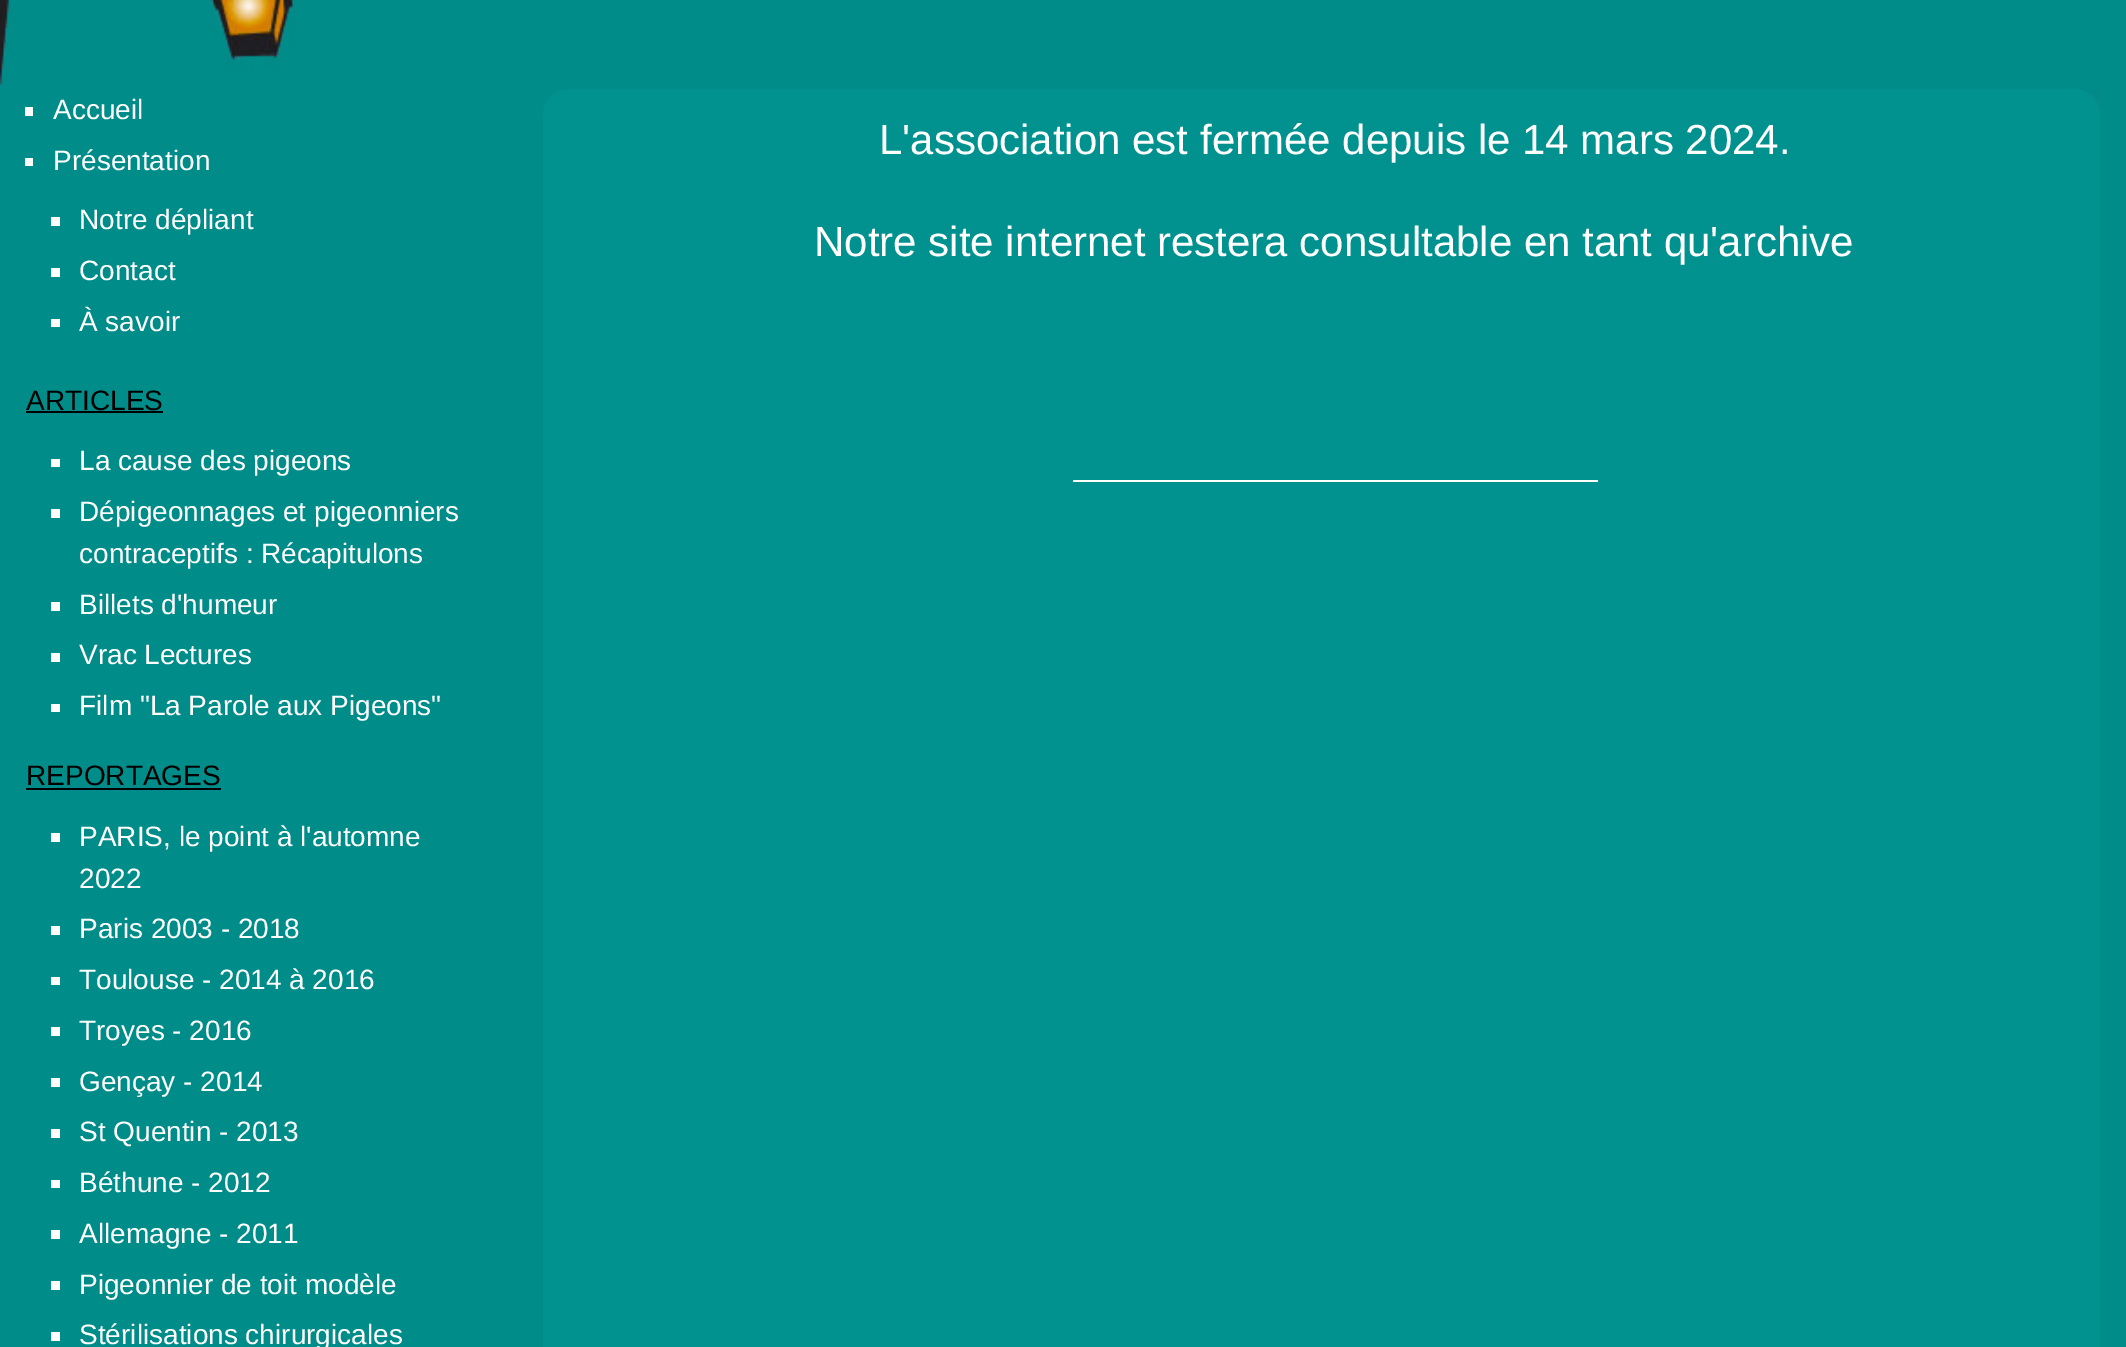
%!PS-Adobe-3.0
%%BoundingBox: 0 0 2126 1347
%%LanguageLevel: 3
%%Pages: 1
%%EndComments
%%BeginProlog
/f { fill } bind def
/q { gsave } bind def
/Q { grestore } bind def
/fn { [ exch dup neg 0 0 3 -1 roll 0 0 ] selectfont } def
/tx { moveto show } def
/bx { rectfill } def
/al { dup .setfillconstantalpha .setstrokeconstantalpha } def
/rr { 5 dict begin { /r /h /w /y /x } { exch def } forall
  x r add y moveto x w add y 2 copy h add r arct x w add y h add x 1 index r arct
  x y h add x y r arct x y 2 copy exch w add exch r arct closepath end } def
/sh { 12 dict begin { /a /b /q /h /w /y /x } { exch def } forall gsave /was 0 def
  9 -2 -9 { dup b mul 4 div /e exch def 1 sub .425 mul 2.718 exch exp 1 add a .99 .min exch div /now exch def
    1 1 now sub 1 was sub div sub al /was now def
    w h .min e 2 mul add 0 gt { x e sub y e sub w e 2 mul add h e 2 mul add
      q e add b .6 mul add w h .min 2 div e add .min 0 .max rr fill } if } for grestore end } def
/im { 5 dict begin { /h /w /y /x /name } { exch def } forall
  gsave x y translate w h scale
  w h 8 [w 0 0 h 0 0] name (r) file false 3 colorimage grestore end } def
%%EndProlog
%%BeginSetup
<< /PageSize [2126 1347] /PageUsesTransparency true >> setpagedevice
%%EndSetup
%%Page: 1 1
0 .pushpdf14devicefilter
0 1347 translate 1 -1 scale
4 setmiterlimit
0 0.549 0.537 setrgbcolor
0 0 2126 1347 bx
(image0.raw) 0 0 295 85 im
1 setgray
25 107 8 9 bx
/LiberationSans-Regular 28 fn
(Accueil) 53 119 tx
25 158 8 8 bx
(Présentation) 53 170 tx
51 217 9 9 bx
(Notre dépliant) 79 229 tx
51 268 9 9 bx
(Contact) 79 280 tx
51 319 9 8 bx
(À savoir) 79 331 tx
0 setgray
(ARTICLES) 26 410 tx
26 411 137 2 bx
1 setgray
51 459 9 8 bx
(La cause des pigeons) 79 470 tx
51 509 9 9 bx
(Dépigeonnages et pigeonniers) 79 521 tx
(contraceptifs : Récapitulons) 79 563 tx
51 602 9 9 bx
(Billets d'humeur) 79 614 tx
51 653 9 9 bx
(Vrac Lectures) 79 664 tx
51 704 9 8 bx
(Film "La Parole aux Pigeons") 79 715 tx
0 setgray
(REPORTAGES) 26 785 tx
26 788 195 2 bx
1 setgray
51 833 9 9 bx
(PARIS, le point à l'automne) 79 846 tx
(2022) 79 888 tx
51 926 9 9 bx
(Paris 2003 - 2018) 79 938 tx
51 977 9 8 bx
(Toulouse - 2014 à 2016) 79 989 tx
51 1027 9 9 bx
(Troyes - 2016) 79 1040 tx
51 1078 9 9 bx
(Gençay - 2014) 79 1091 tx
51 1129 9 9 bx
(St Quentin - 2013) 79 1141 tx
51 1180 9 8 bx
(Béthune - 2012) 79 1192 tx
51 1230 9 9 bx
(Allemagne - 2011) 79 1243 tx
51 1281 9 9 bx
(Pigeonnier de toit modèle) 79 1294 tx
51 1332 9 9 bx
(Stérilisations chirurgicales) 79 1344 tx
q
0 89 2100 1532 rectclip
0.173 0.478 0.471 setrgbcolor
560 107 1558 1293 26 9 1 sh
Q
0.004 0.573 0.561 setrgbcolor
543 89 1557 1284 26 rr f
/LiberationSans-Regular 42 fn
1 setgray
(L'association est fermée depuis le 14 mars 2024.) 879 154 tx
(Notre site internet restera consultable en tant qu'archive) 814 256 tx
1073 480 525 2 bx
.poppdf14devicefilter showpage
%%EOF
